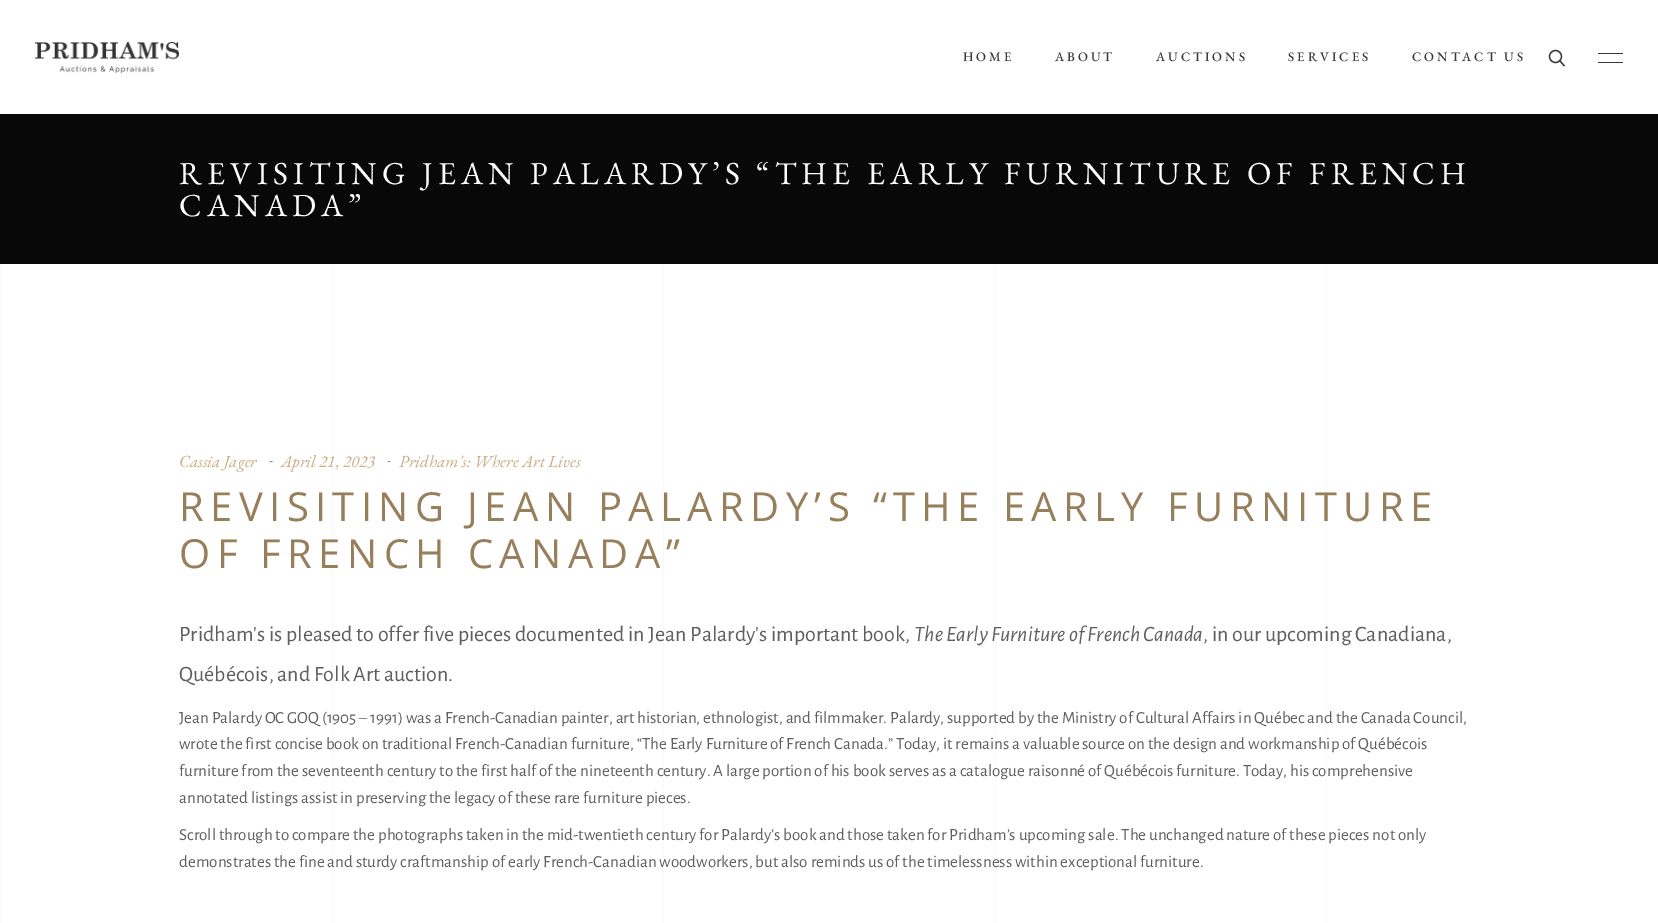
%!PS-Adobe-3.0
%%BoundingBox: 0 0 1658 923
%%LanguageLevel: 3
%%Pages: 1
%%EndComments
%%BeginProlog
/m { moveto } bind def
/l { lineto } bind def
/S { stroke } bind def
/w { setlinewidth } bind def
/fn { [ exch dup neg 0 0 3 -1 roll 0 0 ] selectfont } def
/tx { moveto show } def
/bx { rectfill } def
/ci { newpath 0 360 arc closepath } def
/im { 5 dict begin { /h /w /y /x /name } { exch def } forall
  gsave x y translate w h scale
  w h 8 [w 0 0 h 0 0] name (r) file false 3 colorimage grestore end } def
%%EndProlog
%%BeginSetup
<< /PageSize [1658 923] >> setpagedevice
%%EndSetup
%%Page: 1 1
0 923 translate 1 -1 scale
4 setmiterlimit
1 setgray
0 0 1658 923 bx
(image0.raw) 35 42 144 31 im
/EBGaramond-Medium 13 fn
0.22 setgray
963 61 m 3 0 (HOME) ashow
1055 61 m 3 0 (ABOUT) ashow
1156 61 m 3 0 (AUCTIONS) ashow
1288 61 m 3 0 (SERVICES) ashow
1412 61 m 3 0 (CONTACT US) ashow
1.3 w
1555.5 56.5 6 ci S
1564.5 66 m 1560 61 l S
1598 53 25 1 bx
1598 62 25 1 bx
0.031 setgray
0 114 1658 150 bx
/EBGaramond-Regular 32 fn
1 setgray
179 184 m 5.12 0 (REVISITING JEAN PALARDY’S “THE EARLY FURNITURE OF FRENCH) ashow
179 216 m 5.12 0 (CANADA”) ashow
0.973 setgray
0 264 1 659 bx
332 264 1 659 bx
663 264 1 659 bx
995 264 1 659 bx
1326 264 1 659 bx
/EBGaramond-Italic 17 fn
0.788 0.671 0.506 setrgbcolor
(Cassia Jager) 179 467 tx
/AlegreyaSans-Regular 13 fn
0.373 setgray
(-) 269 465 tx
/EBGaramond-Italic 17 fn
0.788 0.671 0.506 setrgbcolor
(April 21, 2023) 281 467 tx
/AlegreyaSans-Regular 13 fn
0.373 setgray
(-) 387 465 tx
/EBGaramond-Italic 17 fn
0.788 0.671 0.506 setrgbcolor
(Pridham's: Where Art Lives) 399 467 tx
/OpenSans-Regular 40 fn
0.596 0.498 0.361 setrgbcolor
179 521 m 6.4 0 (REVISITING JEAN PALARDY’S “THE EARLY FURNITURE) ashow
179 568 m 6.4 0 (OF FRENCH CANADA”) ashow
/AlegreyaSans-Regular 22 fn
0.373 setgray
(Pridham's is pleased to offer five pieces documented in Jean Palardy's important book,) 179 641 tx
/AlegreyaSans-Italic 22 fn
(The Early Furniture of French Canada) 914 641 tx
/AlegreyaSans-Regular 22 fn
(, in our upcoming Canadiana,) 1203 641 tx
(Québécois, and Folk Art auction.) 179 681 tx
/AlegreyaSans-Regular 17 fn
(Jean Palardy OC GOQ \(1905 – 1991\) was a French-Canadian painter, art historian, ethnologist, and filmmaker. Palardy, supported by the Ministry of Cultural Affairs in Québec and the Canada Council,) 179 723 tx
(wrote the first concise book on traditional French-Canadian furniture, “The Early Furniture of French Canada.” Today, it remains a valuable source on the design and workmanship of Québécois) 179 749 tx
(furniture from the seventeenth century to the first half of the nineteenth century. A large portion of his book serves as a catalogue raisonné of Québécois furniture. Today, his comprehensive) 179 776 tx
(annotated listings assist in preserving the legacy of these rare furniture pieces.) 179 803 tx
(Scroll through to compare the photographs taken in the mid-twentieth century for Palardy’s book and those taken for Pridham’s upcoming sale. The unchanged nature of these pieces not only) 179 840 tx
(demonstrates the fine and sturdy craftmanship of early French-Canadian woodworkers, but also reminds us of the timelessness within exceptional furniture.) 179 867 tx
showpage
%%EOF
